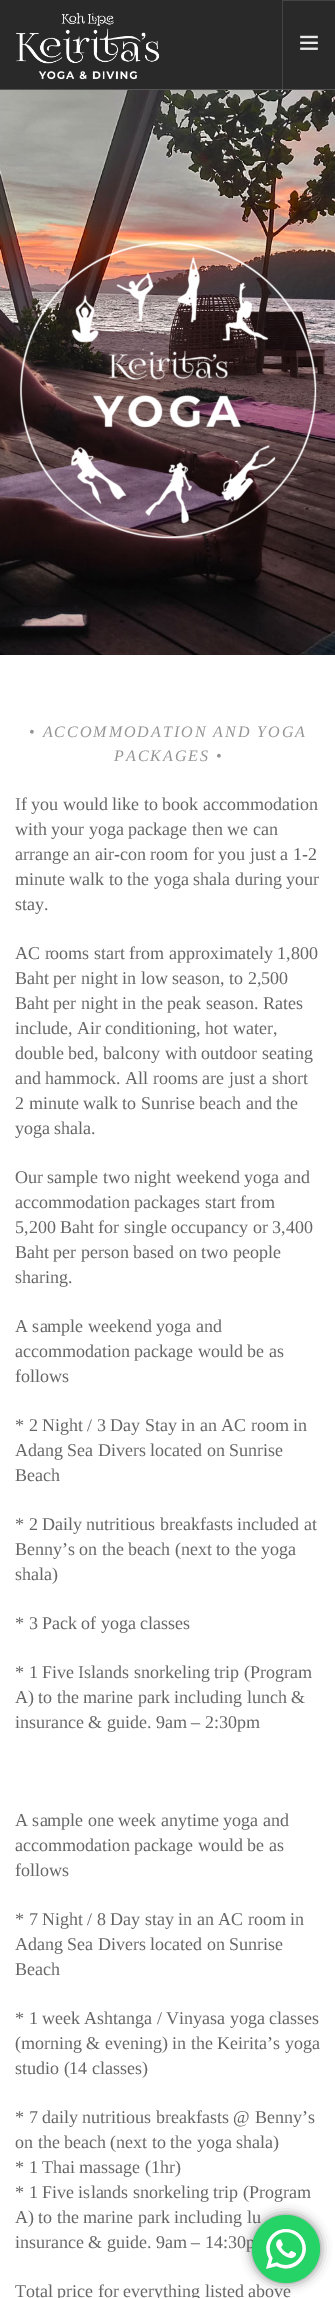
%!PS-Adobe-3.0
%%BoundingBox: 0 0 335 2298
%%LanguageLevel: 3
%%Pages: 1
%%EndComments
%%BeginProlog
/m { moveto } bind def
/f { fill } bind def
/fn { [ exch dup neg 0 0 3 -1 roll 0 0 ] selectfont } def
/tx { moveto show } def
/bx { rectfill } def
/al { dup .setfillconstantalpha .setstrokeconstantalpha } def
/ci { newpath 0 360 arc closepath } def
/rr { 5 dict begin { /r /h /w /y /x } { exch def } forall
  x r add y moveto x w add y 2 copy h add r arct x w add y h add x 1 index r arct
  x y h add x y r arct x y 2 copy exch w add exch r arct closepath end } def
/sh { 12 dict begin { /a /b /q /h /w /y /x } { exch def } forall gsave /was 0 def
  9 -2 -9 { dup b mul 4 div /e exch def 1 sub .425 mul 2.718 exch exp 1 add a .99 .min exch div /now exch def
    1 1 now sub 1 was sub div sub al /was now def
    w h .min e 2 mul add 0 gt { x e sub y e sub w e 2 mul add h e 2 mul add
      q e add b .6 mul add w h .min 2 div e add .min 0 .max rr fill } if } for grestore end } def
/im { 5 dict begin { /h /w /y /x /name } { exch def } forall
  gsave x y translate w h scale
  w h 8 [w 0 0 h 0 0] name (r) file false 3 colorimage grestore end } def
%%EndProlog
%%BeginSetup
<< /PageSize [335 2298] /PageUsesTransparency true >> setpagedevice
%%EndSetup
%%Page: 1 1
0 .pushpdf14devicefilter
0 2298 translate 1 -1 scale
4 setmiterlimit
1 setgray
0 0 335 2298 bx
0.161 setgray
0 0 335 89 bx
0.329 setgray
0 89 335 1 bx
(image0.raw) 16 12 144 68 im
0.267 setgray
282 0 53 1 bx
282 0 1 89 bx
(image1.raw) 300 35 18 15 im
(image2.raw) 0 90 335 565 im
(image3.raw) 19 242 298 297 im
/LiberationSerif-Italic 16 fn
0.58 setgray
29 737 m 2 0 (• ACCOMMODATION AND YOGA) ashow
114 761 m 2 0 (PACKAGES •) ashow
/LiberationSerif-Regular 18 fn
0.4 setgray
(If you would like to book accommodation) 15 810 tx
(with your yoga package then we can) 15 835 tx
(arrange an air-con room for you just a 1-2) 15 860 tx
(minute walk to the yoga shala during your) 15 885 tx
(stay.) 15 910 tx
(AC rooms start from approximately 1,800) 15 959 tx
(Baht per night in low season, to 2,500) 15 984 tx
(Baht per night in the peak season. Rates) 15 1009 tx
(include, Air conditioning, hot water,) 15 1034 tx
(double bed, balcony with outdoor seating) 15 1059 tx
(and hammock. All rooms are just a short) 15 1084 tx
(2 minute walk to Sunrise beach and the) 15 1109 tx
(yoga shala.) 15 1134 tx
(Our sample two night weekend yoga and) 15 1183 tx
(accommodation packages start from) 15 1208 tx
(5,200 Baht for single occupancy or 3,400) 15 1233 tx
(Baht per person based on two people) 15 1258 tx
(sharing.) 15 1283 tx
(A sample weekend yoga and) 15 1332 tx
(accommodation package would be as) 15 1357 tx
(follows) 15 1382 tx
(* 2 Night / 3 Day Stay in an AC room in) 15 1431 tx
(Adang Sea Divers located on Sunrise) 15 1456 tx
(Beach) 15 1481 tx
(* 2 Daily nutritious breakfasts included at) 15 1530 tx
(Benny’s on the beach \(next to the yoga) 15 1555 tx
(shala\)) 15 1580 tx
(* 3 Pack of yoga classes) 15 1629 tx
(* 1 Five Islands snorkeling trip \(Program) 15 1678 tx
(A\) to the marine park including lunch &) 15 1703 tx
(insurance & guide. 9am – 2:30pm) 15 1728 tx
(A sample one week anytime yoga and) 15 1826 tx
(accommodation package would be as) 15 1851 tx
(follows) 15 1876 tx
(* 7 Night / 8 Day stay in an AC room in) 15 1925 tx
(Adang Sea Divers located on Sunrise) 15 1950 tx
(Beach) 15 1975 tx
(* 1 week Ashtanga / Vinyasa yoga classes) 15 2024 tx
(\(morning & evening\) in the Keirita’s yoga) 15 2049 tx
(studio \(14 classes\)) 15 2074 tx
(* 7 daily nutritious breakfasts @ Benny’s) 15 2123 tx
(on the beach \(next to the yoga shala\)) 15 2148 tx
(* 1 Thai massage \(1hr\)) 15 2173 tx
(* 1 Five islands snorkeling trip \(Program) 15 2198 tx
(A\) to the marine park including lu) 15 2223 tx
(insurance & guide. 9am – 14:30p) 15 2248 tx
(Total price for everything listed above) 15 2297 tx
0 setgray
252 2215 68 68 34 5.5 0.5 sh
0.145 0.827 0.4 setrgbcolor
286 2249 34 ci f
(image4.raw) 266 2229 40 40 im
.poppdf14devicefilter showpage
%%EOF
